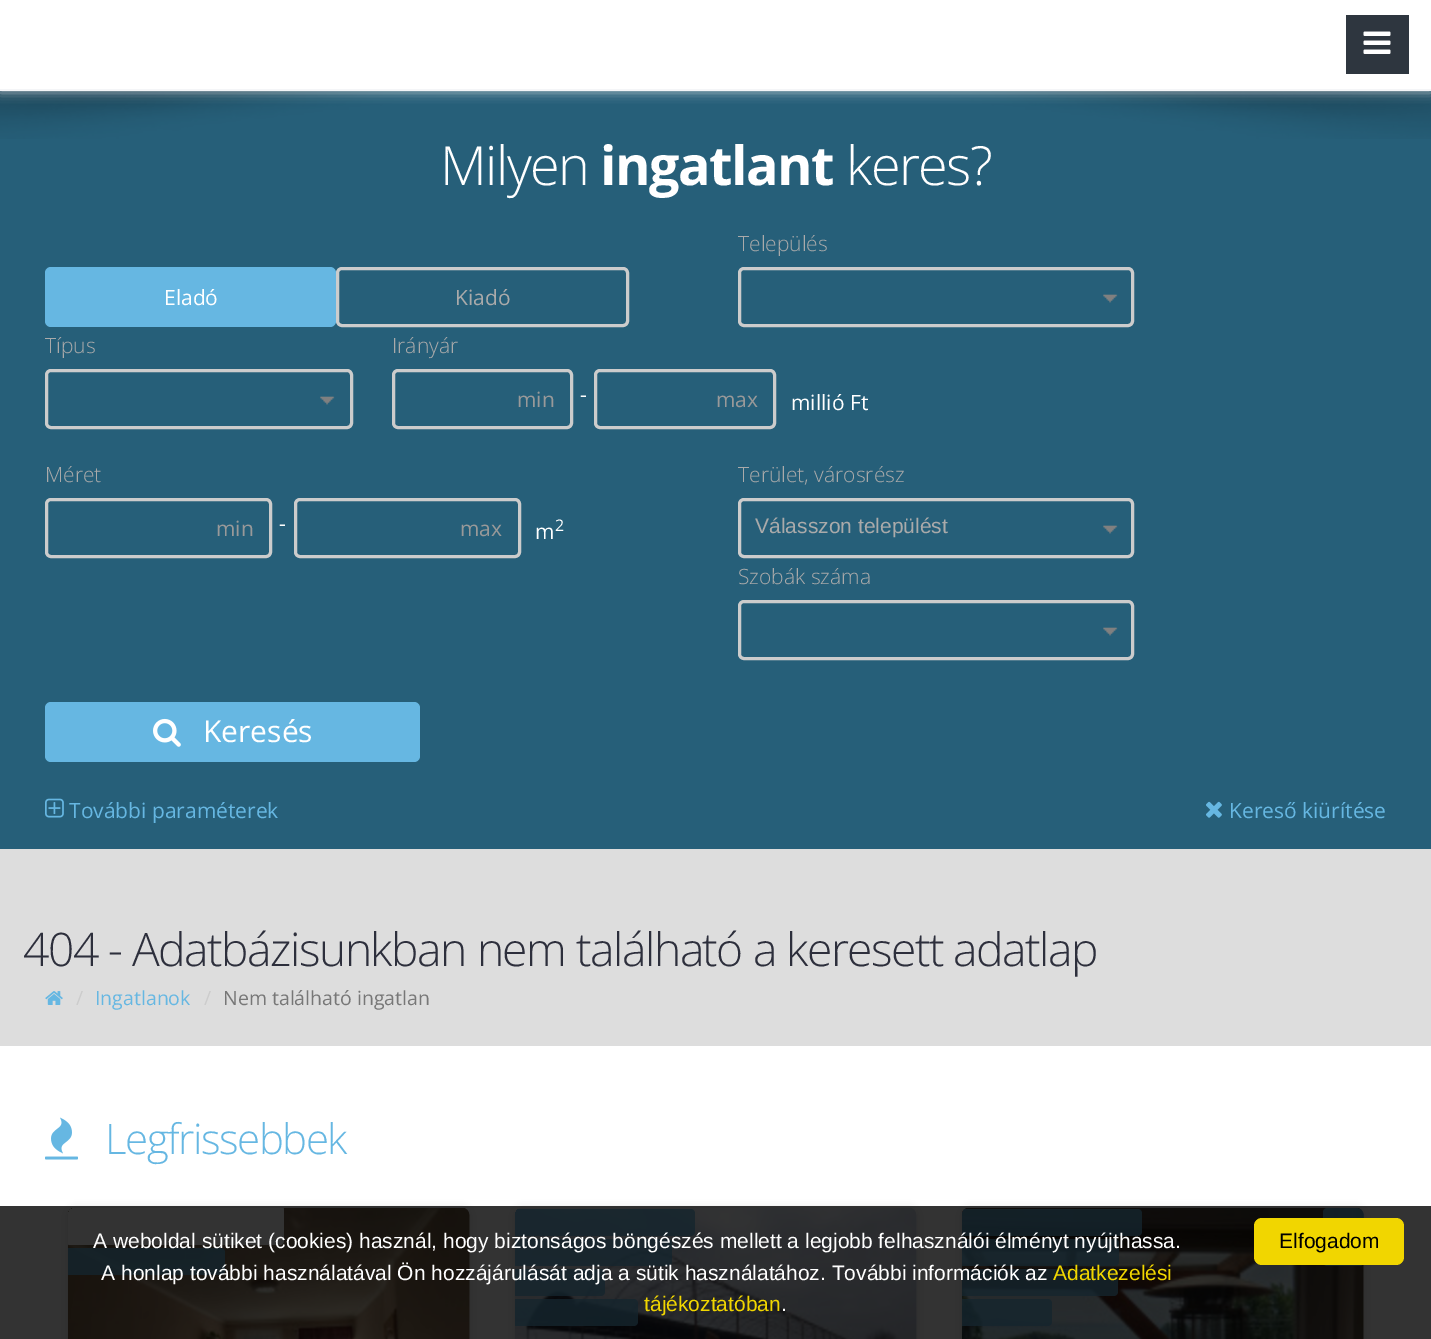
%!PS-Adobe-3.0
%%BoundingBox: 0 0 1431 1339
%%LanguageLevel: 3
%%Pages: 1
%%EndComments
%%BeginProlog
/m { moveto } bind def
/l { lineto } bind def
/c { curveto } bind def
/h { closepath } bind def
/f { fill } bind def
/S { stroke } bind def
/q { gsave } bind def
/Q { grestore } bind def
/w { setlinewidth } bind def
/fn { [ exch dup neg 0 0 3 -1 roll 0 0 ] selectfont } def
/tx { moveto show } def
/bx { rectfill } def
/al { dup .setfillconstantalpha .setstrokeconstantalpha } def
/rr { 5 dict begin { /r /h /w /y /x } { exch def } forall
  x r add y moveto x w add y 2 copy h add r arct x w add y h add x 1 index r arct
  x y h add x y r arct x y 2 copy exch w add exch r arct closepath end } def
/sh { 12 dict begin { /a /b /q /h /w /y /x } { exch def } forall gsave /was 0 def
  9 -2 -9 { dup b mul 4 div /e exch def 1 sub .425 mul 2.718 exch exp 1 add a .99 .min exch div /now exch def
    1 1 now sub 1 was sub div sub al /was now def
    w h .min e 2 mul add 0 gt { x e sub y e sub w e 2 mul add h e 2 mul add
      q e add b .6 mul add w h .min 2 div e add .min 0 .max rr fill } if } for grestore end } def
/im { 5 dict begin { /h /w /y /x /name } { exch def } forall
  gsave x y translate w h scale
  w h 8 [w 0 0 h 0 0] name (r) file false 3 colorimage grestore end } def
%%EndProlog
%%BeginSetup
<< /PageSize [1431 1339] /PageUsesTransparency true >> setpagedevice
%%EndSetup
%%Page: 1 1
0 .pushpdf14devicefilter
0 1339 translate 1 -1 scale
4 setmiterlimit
1 setgray
0 0 1431 1339 bx
0.149 0.373 0.475 setrgbcolor
0 91 1431 758 bx
(image1.raw) 0 91 1431 48 im
0.933 setgray
0 0 1431 90 0 6 1 sh
1 setgray
0 0 1431 89 bx
0.957 0.961 0.969 setrgbcolor
0 89 1431 2 bx
0.18 0.212 0.247 setrgbcolor
1346 15 63 59 bx
(image0.raw) 1363 31 28 23 im
/OpenSans-Light 54 fn
1 setgray
440 185 m -1.5 0 (Milyen) ashow
/OpenSans-Bold 54 fn
600 185 m -1.5 0 (ingatlant) ashow
/OpenSans-Light 54 fn
846 185 m -1.5 0 (keres?) ashow
/OpenSans-Light 21 fn
0.667 setgray
(Település) 738 251 tx
0.8 setgray
3 w
739.5 268.5 393 57 4.5 rr S
(image2.raw) 1103 294 15 9 im
0.4 0.718 0.886 setrgbcolor
45 267 291 60 6 rr f
/OpenSans-Regular 21 fn
1 setgray
(Eladó) 164 305 tx
0.8 setgray
337.5 268.5 290 57 4.5 rr S
0.667 setgray
(Kiadó) 455 305 tx
/OpenSans-Light 21 fn
(Típus) 45 353 tx
0.8 setgray
46.5 370.5 305 57 4.5 rr S
(image2.raw) 320 396 15 9 im
0.667 setgray
(Irányár) 392 353 tx
0.8 setgray
393.5 370.5 178 57 4.5 rr S
/OpenSans-Regular 21 fn
0.6 setgray
(min) 517 407 tx
1 setgray
(-) 580 402 tx
0.8 setgray
595.5 370.5 179 57 4.5 rr S
0.6 setgray
(max) 716 407 tx
1 setgray
(millió Ft) 791 410 tx
/OpenSans-Light 21 fn
0.667 setgray
(Méret) 45 482 tx
0.8 setgray
46.5 499.5 224 57 4.5 rr S
/OpenSans-Regular 21 fn
0.6 setgray
(min) 216 536 tx
1 setgray
(-) 279 531 tx
0.8 setgray
295.5 499.5 224 57 4.5 rr S
0.6 setgray
(max) 460 536 tx
/OpenSans-Regular 16 fn
1 setgray
(2) 555 531 tx
/OpenSans-Regular 21 fn
(m) 535 539 tx
/OpenSans-Light 21 fn
0.667 setgray
(Terület, városrész) 738 482 tx
0.8 setgray
739.5 499.5 393 57 4.5 rr S
/LiberationSans-Regular 21 fn
0.667 setgray
(Válasszon települést) 755 533 tx
(image2.raw) 1103 525 15 9 im
/OpenSans-Light 21 fn
(Szobák száma) 738 584 tx
0.8 setgray
739.5 601.5 393 57 4.5 rr S
(image2.raw) 1103 627 15 9 im
0.4 0.718 0.886 setrgbcolor
45 702 375 60 6 rr f
(image3.raw) 153 718 28 29 im
/OpenSans-Regular 30 fn
1 setgray
(Keresés) 203 742 tx
(image4.raw) 45 798 19 20 im
/OpenSans-Regular 21 fn
0.4 0.718 0.886 setrgbcolor
(További paraméterek) 69 818 tx
(image5.raw) 1206 801 16 17 im
(Kereső kiürítése) 1229 818 tx
0.867 setgray
0 849 1431 197 bx
/OpenSans-Light 46.2 fn
0.176 0.184 0.235 setrgbcolor
23 966 m -1.5 0 (404 - Adatbázisunkban nem található a keresett adatlap) ashow
(image6.raw) 45 991 18 14 im
/OpenSans-Regular 19.5 fn
0.8 setgray
(/) 76 1005 tx
0.4 0.718 0.886 setrgbcolor
(Ingatlanok) 95 1005 tx
0.8 setgray
(/) 204 1005 tx
0.467 setgray
(Nem található ingatlan) 223 1005 tx
(image7.raw) 45 1117 33 43 im
/OpenSans-Light 42 fn
0.4 0.718 0.886 setrgbcolor
105 1154 m -1.5 0 (Legfrissebbek) ashow
0.196 setgray
68 1208 402 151 8 4 0.15 sh
0.98 setgray
68 1208 402 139 8 rr f
(image8.raw) 68 1208 402 131 im
q
68 1208 402 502 8 rr clip newpath
1 setgray
66 1206 218 39 4 rr f
Q
0.8 al
0.4 0.718 0.886 setrgbcolor
68 1248 m 221 1248 l 223 1248 225 1250 225 1252 c 225 1271 l 225 1273 223 1275 221 1275 c 68 1275 l h f
1 al
0.196 setgray
515 1208 402 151 8 4 0.15 sh
0.98 setgray
515 1208 402 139 8 rr f
(image9.raw) 515 1208 402 131 im
q
515 1208 402 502 8 rr clip newpath
0.8 al
0.4 0.718 0.886 setrgbcolor
515 1209 m 691 1209 l 693 1209 695 1211 695 1213 c 695 1232 l 695 1234 693 1236 691 1236 c 515 1236 l h f
Q
0.8 al
0.4 0.718 0.886 setrgbcolor
515 1239 m 668 1239 l 670 1239 672 1241 672 1243 c 672 1262 l 672 1264 670 1266 668 1266 c 515 1266 l h f
515 1269 m 601 1269 l 603 1269 605 1271 605 1273 c 605 1292 l 605 1294 603 1296 601 1296 c 515 1296 l h f
515 1299 m 634 1299 l 636 1299 638 1301 638 1303 c 638 1322 l 638 1324 636 1326 634 1326 c 515 1326 l h f
1 al
0.196 setgray
962 1208 402 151 8 4 0.15 sh
0.98 setgray
962 1208 402 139 8 rr f
(image10.raw) 962 1208 402 131 im
q
962 1208 402 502 8 rr clip newpath
0.8 al
0.4 0.718 0.886 setrgbcolor
962 1209 m 1138 1209 l 1140 1209 1142 1211 1142 1213 c 1142 1232 l 1142 1234 1140 1236 1138 1236 c 962 1236 l h f
Q
0.8 al
0.4 0.718 0.886 setrgbcolor
1327 1208 m 1356 1208 l 1360.5 1208 1364 1211.5 1364 1216 c 1364 1262 l 1364 1264 1362 1266 1360 1266 c 1327 1266 l 1325 1266 1323 1264 1323 1262 c 1323 1212 l 1323 1210 1325 1208 1327 1208 c h f
962 1239 m 1115 1239 l 1117 1239 1119 1241 1119 1243 c 1119 1262 l 1119 1264 1117 1266 1115 1266 c 962 1266 l h f
962 1269 m 1114 1269 l 1116 1269 1118 1271 1118 1273 c 1118 1292 l 1118 1294 1116 1296 1114 1296 c 962 1296 l h f
962 1299 m 1048 1299 l 1050 1299 1052 1301 1052 1303 c 1052 1322 l 1052 1324 1050 1326 1048 1326 c 962 1326 l h f
0 setgray
0 1206 1431 133 bx
/LiberationSans-Regular 21 fn
1 al
1 setgray
(A weboldal sütiket \(cookies\) használ, hogy biztonságos böngészés mellett a legjobb felhasználói élményt nyújthassa.) 93 1248 tx
(A honlap további használatával Ön hozzájárulását adja a sütik használatához. További információk az) 101 1280 tx
0.945 0.839 0 setrgbcolor
(Adatkezelési) 1053 1280 tx
(tájékoztatóban) 644 1311 tx
1 setgray
(.) 781 1311 tx
0.945 0.839 0 setrgbcolor
1254 1218 150 47 8 rr f
0 setgray
(Elfogadom) 1279 1248 tx
.poppdf14devicefilter showpage
%%EOF
